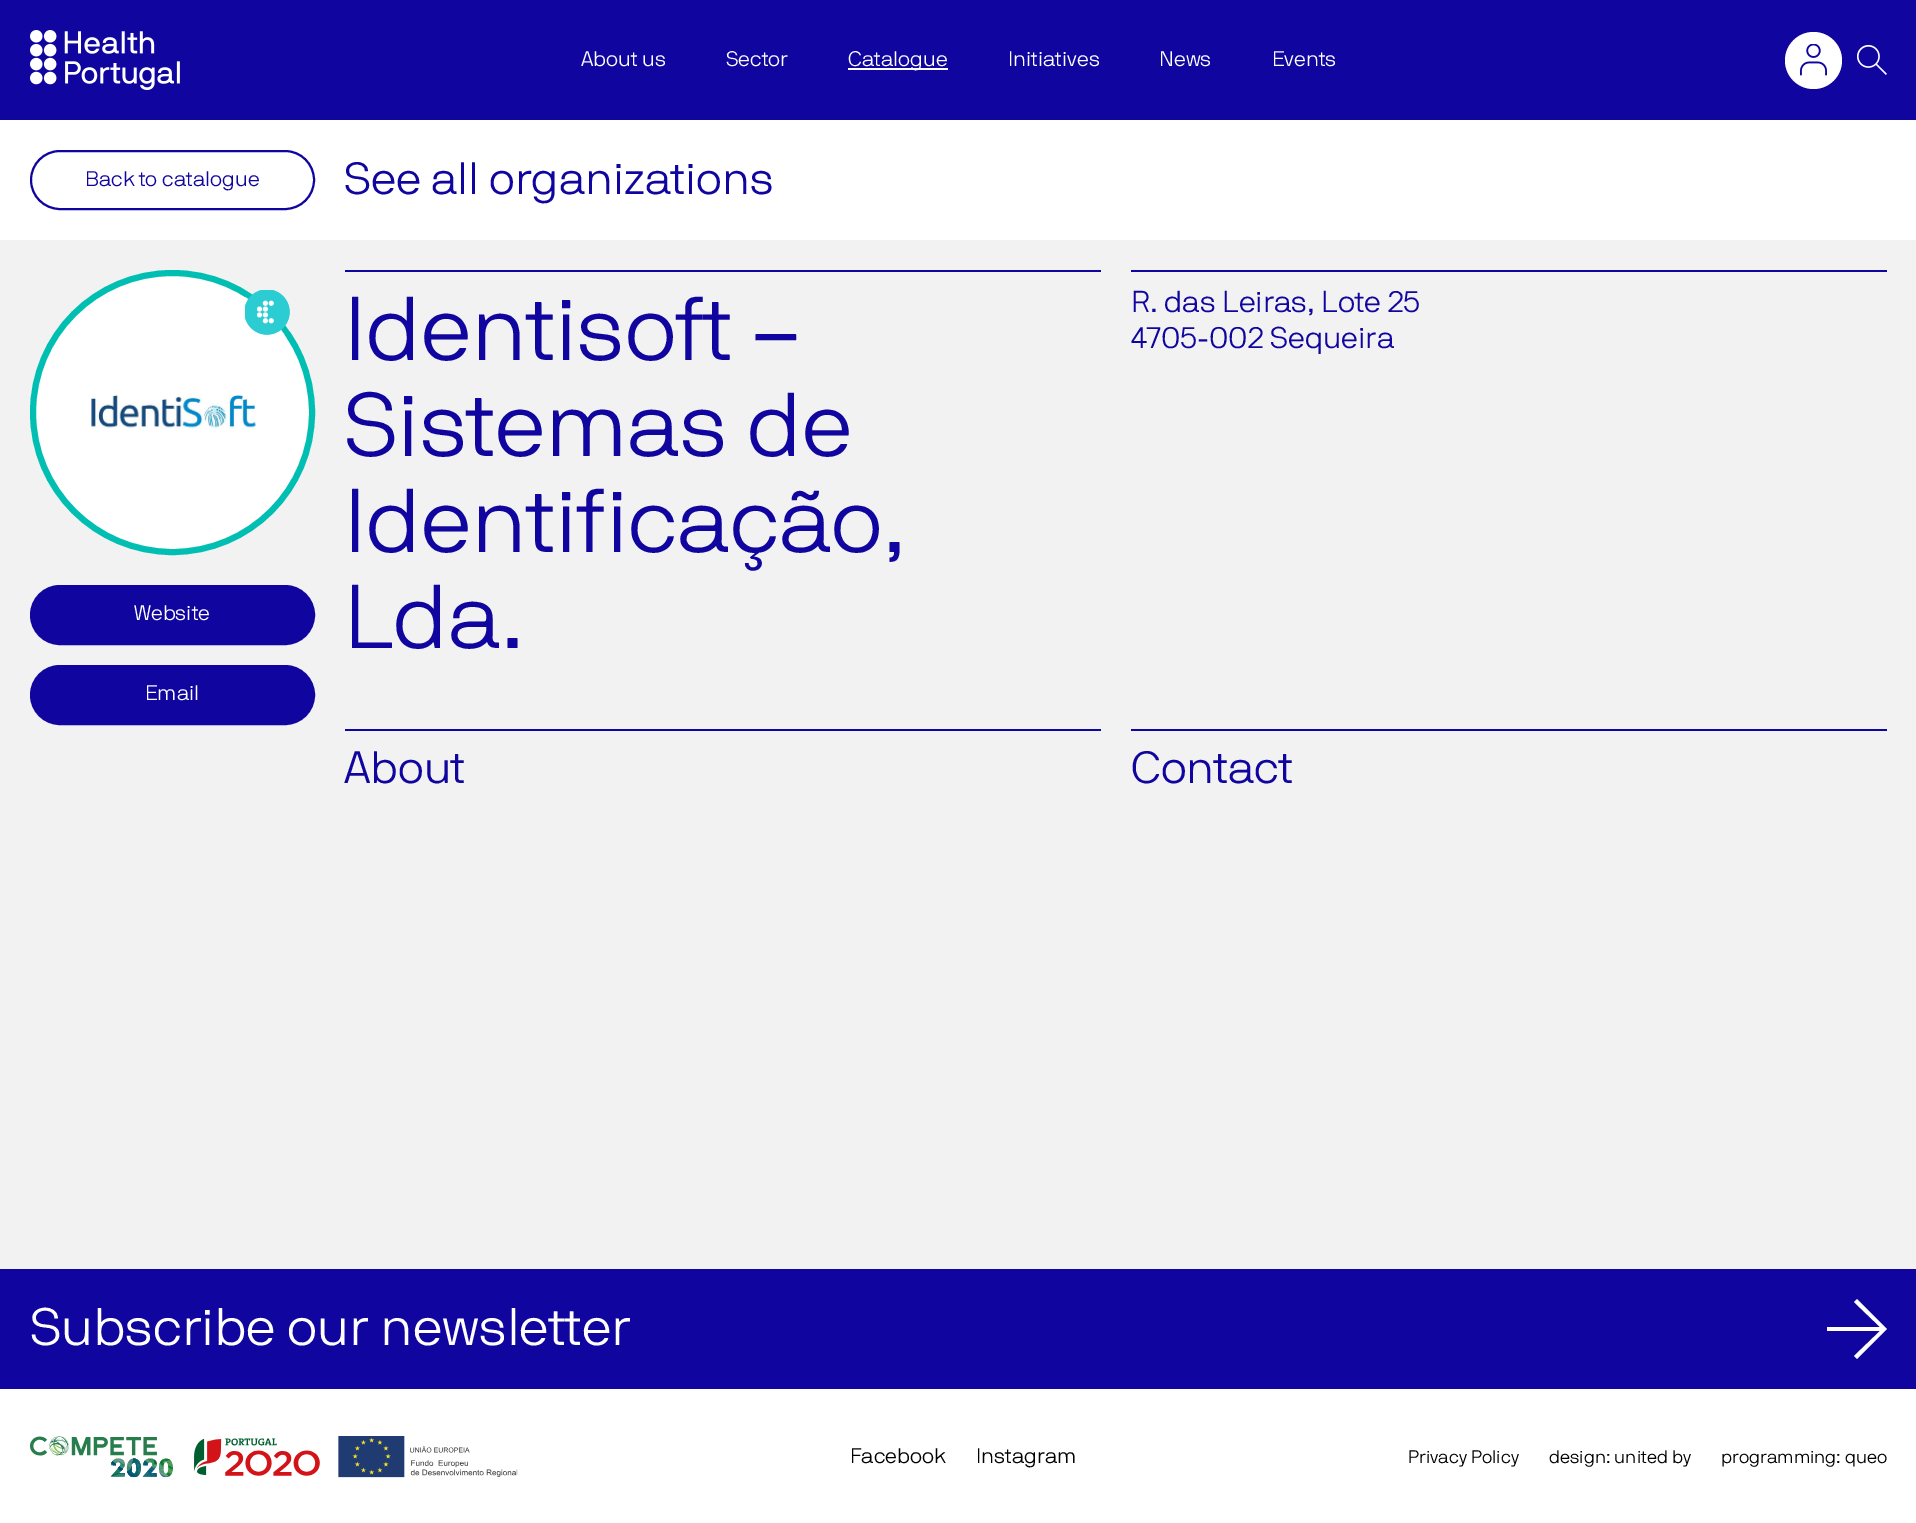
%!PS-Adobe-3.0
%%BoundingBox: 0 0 1916 1523
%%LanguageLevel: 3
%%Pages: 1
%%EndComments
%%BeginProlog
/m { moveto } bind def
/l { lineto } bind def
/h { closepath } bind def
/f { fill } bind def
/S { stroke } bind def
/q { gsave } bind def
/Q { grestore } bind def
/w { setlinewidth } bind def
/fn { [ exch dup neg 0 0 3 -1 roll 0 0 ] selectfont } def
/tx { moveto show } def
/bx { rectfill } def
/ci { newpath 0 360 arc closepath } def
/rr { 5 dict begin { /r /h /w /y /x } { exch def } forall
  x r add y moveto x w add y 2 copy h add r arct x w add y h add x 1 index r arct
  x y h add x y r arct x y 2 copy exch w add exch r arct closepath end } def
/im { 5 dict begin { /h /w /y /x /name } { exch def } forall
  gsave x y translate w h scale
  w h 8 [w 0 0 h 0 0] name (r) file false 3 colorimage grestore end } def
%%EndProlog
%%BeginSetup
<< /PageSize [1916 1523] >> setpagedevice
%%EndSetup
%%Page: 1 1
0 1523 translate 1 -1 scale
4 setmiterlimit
0.949 setgray
0 0 1916 1523 bx
0.063 0.024 0.624 setrgbcolor
0 0 1916 120 bx
(image0.raw) 30 30 150 60 im
/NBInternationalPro-Light 21 fn
1 setgray
(About us) 581 66 tx
(Sector) 726 66 tx
848 68 100 2 bx
(Catalogue) 848 66 tx
(Initiatives) 1008 66 tx
(News) 1159 66 tx
(Events) 1272 66 tx
1813.5 60.5 28.5 ci f
(image1.raw) 1800 44 27 32 im
(image2.raw) 1857 44 30 31 im
0 120 1916 120 bx
0.063 0.024 0.624 setrgbcolor
2 w
31 151 283 58 29 rr S
(Back to catalogue) 85 186 tx
/NBInternationalPro-Light 45 fn
(See all organizations) 344 194 tx
1 setgray
172.5 412.5 139.5 ci q f Q
0 0.749 0.698 setrgbcolor
6 w
S
(image3.raw) 245 290 45 45 im
(image4.raw) 91 394 165 35 im
0.063 0.024 0.624 setrgbcolor
31 586 283 58 29 rr q f Q
2 w
S
/NBInternationalPro-Light 21 fn
1 setgray
(Website) 134 620 tx
0.063 0.024 0.624 setrgbcolor
31 666 283 58 29 rr q f Q
S
1 setgray
(Email) 145 700 tx
0.063 0.024 0.624 setrgbcolor
345 270 756 2 bx
/NBInternationalPro-Light 90 fn
(Identisoft –) 344 360 tx
(Sistemas de) 344 456 tx
(Identificação,) 344 552 tx
(Lda.) 344 648 tx
1131 270 756 2 bx
/NBInternationalPro-Light 30 fn
(R. das Leiras, Lote 25) 1131 312 tx
(4705-002 Sequeira) 1131 348 tx
345 729 756 2 bx
/NBInternationalPro-Light 45 fn
(About) 344 783 tx
1131 729 756 2 bx
(Contact) 1131 783 tx
0 1269 1916 120 bx
/NBInternationalPro-Light 52.5 fn
1 setgray
(Subscribe our newsletter) 30 1345 tx
1857 1299 m 1854 1302 l 1880 1327 l 1827 1327 l 1827 1331 l 1880 1331 l 1854 1356 l 1857 1359 l 1887 1329 l h f
0 1389 1916 134 bx
(image5.raw) 30 1436 488 42 im
/NBInternationalPro-Light 21 fn
0 setgray
(Facebook) 850 1463 tx
(Instagram) 976 1463 tx
/NBInternationalPro-Light 18 fn
(Privacy Policy) 1408 1463 tx
(design: united by) 1549 1463 tx
(programming: queo) 1721 1463 tx
showpage
%%EOF
